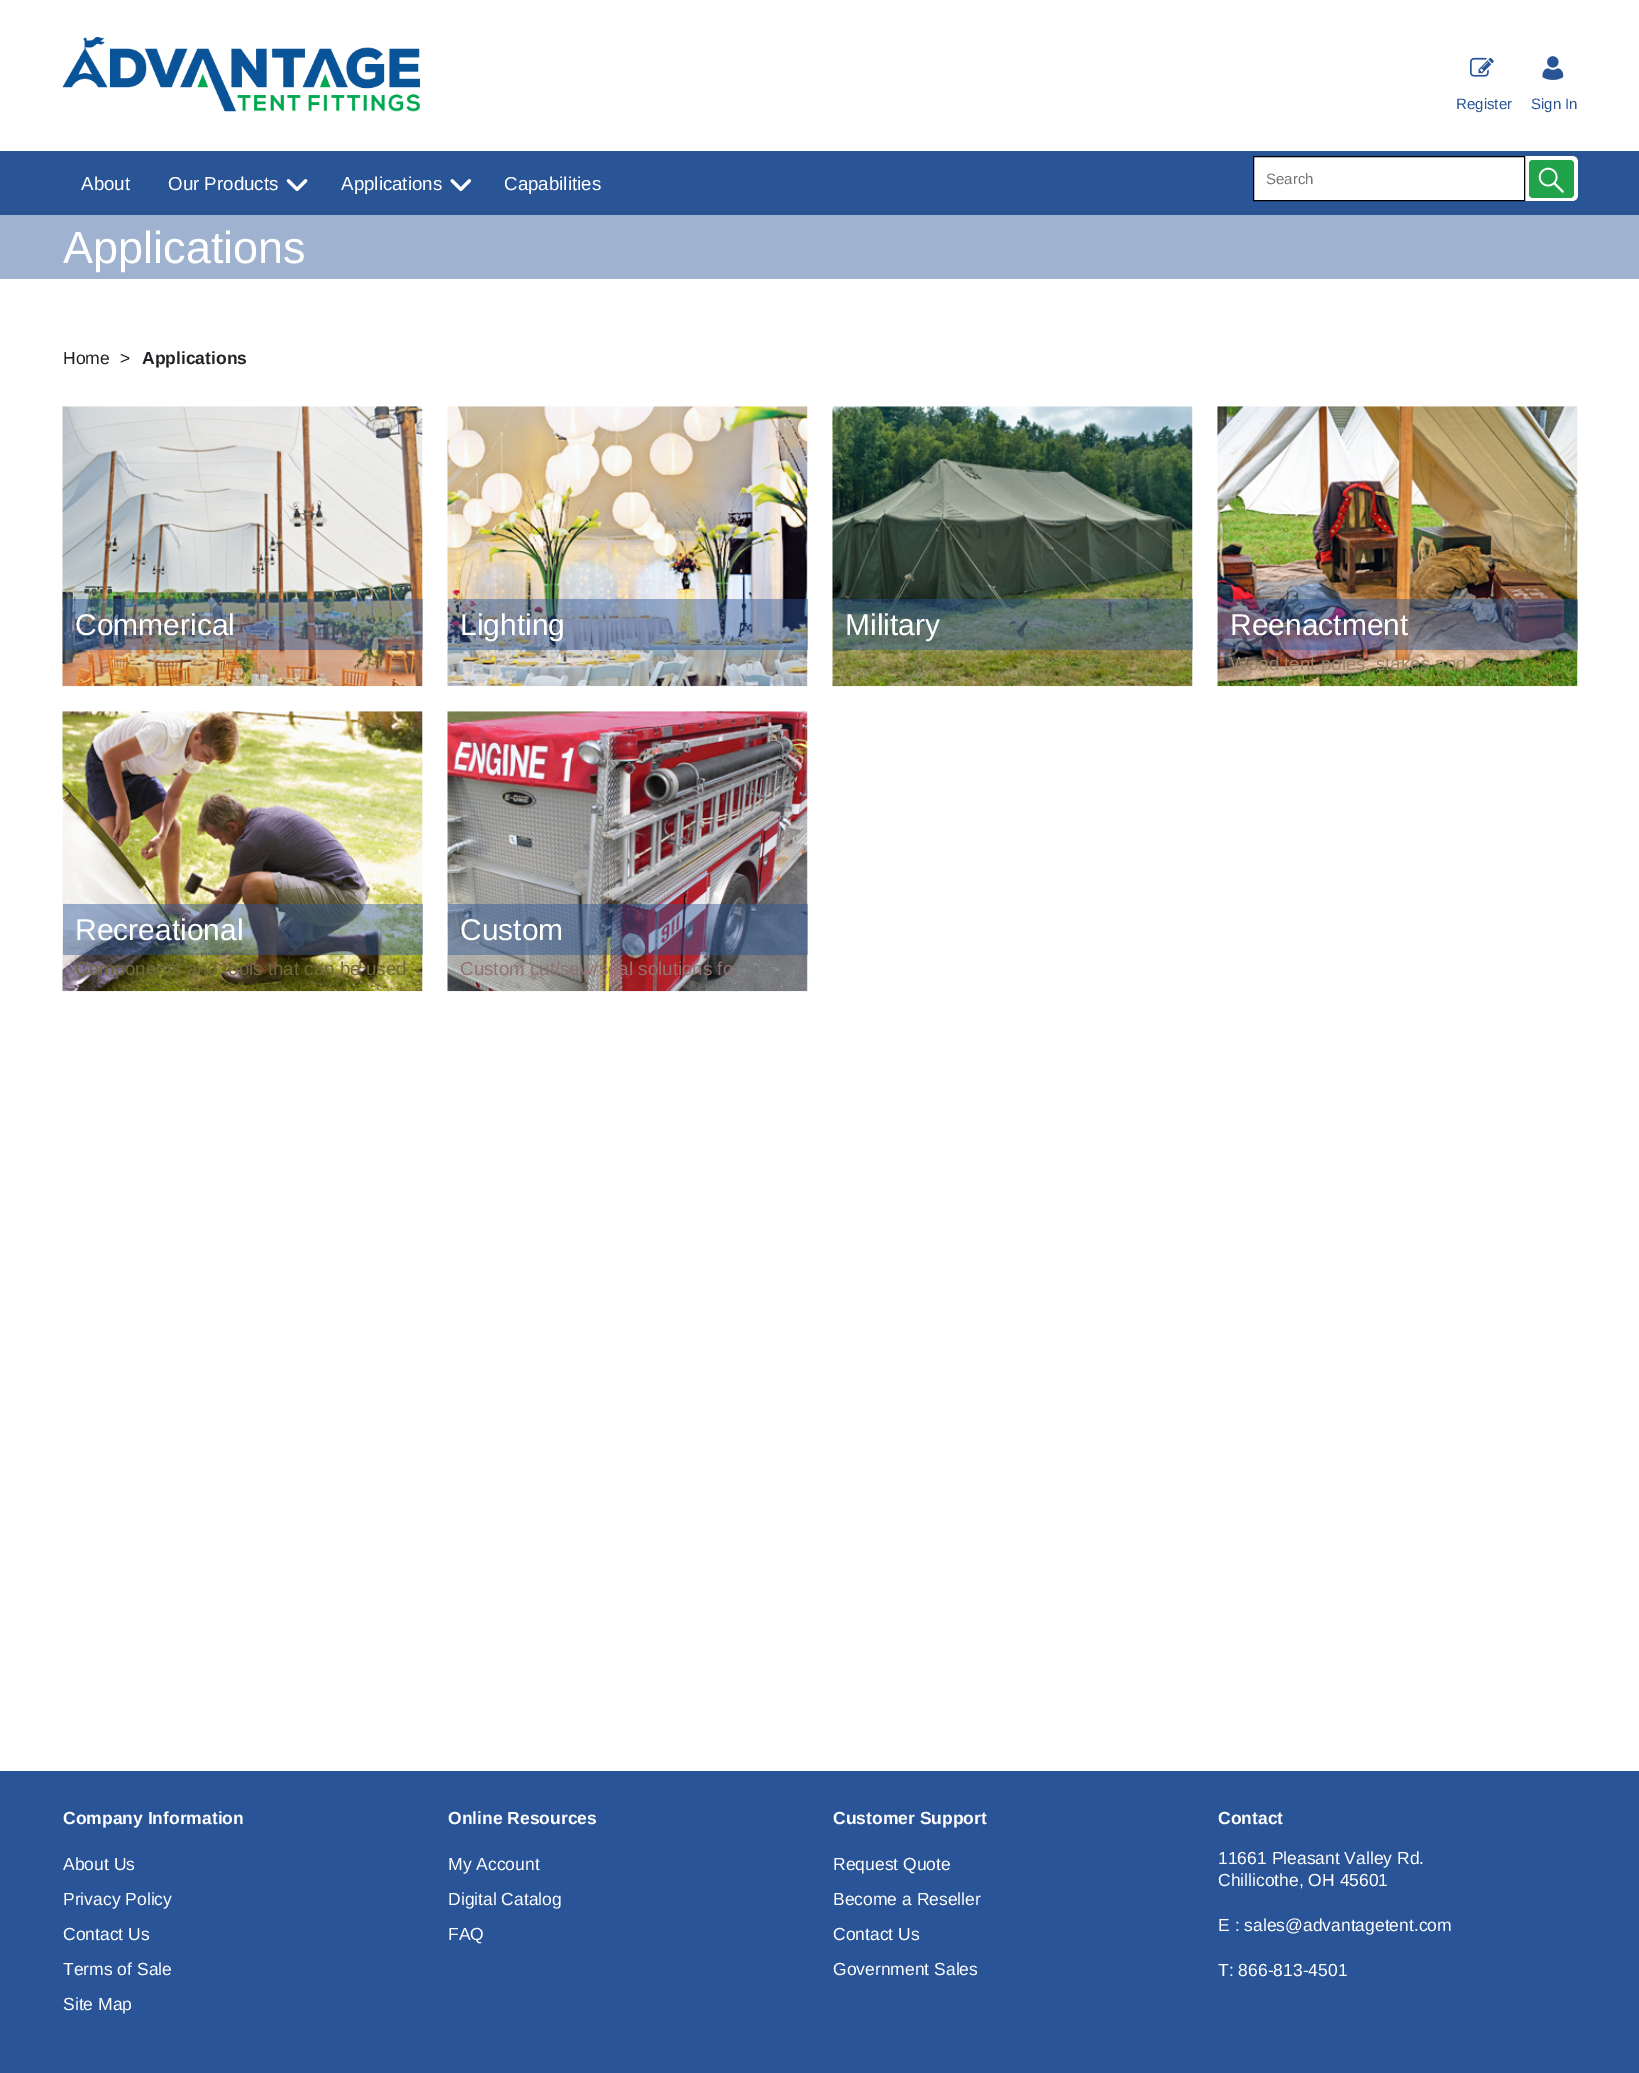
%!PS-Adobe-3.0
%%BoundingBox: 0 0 1639 2073
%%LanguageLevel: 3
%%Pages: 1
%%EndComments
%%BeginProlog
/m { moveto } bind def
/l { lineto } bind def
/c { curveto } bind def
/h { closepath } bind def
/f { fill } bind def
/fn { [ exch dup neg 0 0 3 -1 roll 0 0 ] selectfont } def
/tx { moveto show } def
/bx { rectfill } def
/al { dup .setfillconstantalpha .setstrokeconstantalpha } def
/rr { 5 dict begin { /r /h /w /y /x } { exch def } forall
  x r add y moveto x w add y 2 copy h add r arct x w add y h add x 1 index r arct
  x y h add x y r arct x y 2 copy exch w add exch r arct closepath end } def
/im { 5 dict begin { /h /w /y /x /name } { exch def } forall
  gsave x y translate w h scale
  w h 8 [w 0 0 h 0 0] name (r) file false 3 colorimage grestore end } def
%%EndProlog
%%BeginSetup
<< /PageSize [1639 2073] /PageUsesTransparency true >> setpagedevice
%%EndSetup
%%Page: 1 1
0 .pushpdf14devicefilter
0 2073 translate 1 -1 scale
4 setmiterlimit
1 setgray
0 0 1639 2073 bx
0.161 0.333 0.592 setrgbcolor
0 151 1639 64 bx
/LiberationSans-Regular 18.75 fn
1 setgray
(About) 81 190 tx
(Our Products) 168 190 tx
(image0.raw) 286 179 22 13 im
(Applications) 341 190 tx
(image1.raw) 450 179 22 13 im
(Capabilities) 504 190 tx
(image2.raw) 62 36 358 76 im
(image3.raw) 1470 57 24 20 im
/LiberationSans-Regular 15 fn
0.161 0.333 0.592 setrgbcolor
(Register) 1456 109 tx
(image4.raw) 1542 56 22 24 im
(Sign In) 1531 109 tx
1 setgray
1253 156 m 1572 156 l 1575.5 156 1578 158.5 1578 162 c 1578 195 l 1578 198.5 1575.5 201 1572 201 c 1253 201 l h f
0 setgray
1253.5 156.5 271 44 rectstroke
0.459 setgray
(Search) 1266 184 tx
0.129 0.639 0.294 setrgbcolor
1529 160 45 38 4 rr f
(image5.raw) 1538 167 26 26 im
0.624 0.702 0.816 setrgbcolor
0 215 1639 64 bx
/LiberationSans-Regular 45 fn
1 setgray
(Applications) 63 263 tx
/LiberationSans-Regular 17.5 fn
0.125 0.129 0.145 setrgbcolor
(Home) 63 364 tx
(>) 120 364 tx
/LiberationSans-Bold 17.5 fn
(Applications) 142 364 tx
(image6.raw) 62 406 361 281 im
0.45 al
0.161 0.333 0.592 setrgbcolor
63 599 360 51 bx
/LiberationSans-Regular 30 fn
1 al
1 setgray
(Commerical) 75 635 tx
/LiberationSans-Regular 18.75 fn
0.776 0.584 0.4 setrgbcolor
(f) 152 670 tx
(image7.raw) 447 406 361 281 im
0.45 al
0.161 0.333 0.592 setrgbcolor
448 599 360 51 bx
/LiberationSans-Regular 30 fn
1 al
1 setgray
(Lighting) 460 635 tx
/LiberationSans-Regular 18.75 fn
0.722 0.733 0.706 setrgbcolor
(n) 745 670 tx
(image8.raw) 832 406 361 281 im
0.45 al
0.161 0.333 0.592 setrgbcolor
833 599 360 51 bx
/LiberationSans-Regular 30 fn
1 al
1 setgray
(Military) 845 635 tx
(image9.raw) 1217 406 361 281 im
0.45 al
0.161 0.333 0.592 setrgbcolor
1218 599 360 51 bx
1 al
1 setgray
(Reenactment) 1230 635 tx
/LiberationSans-Regular 18.75 fn
0.604 0.518 0.4 setrgbcolor
(Wood tent poles, stakes and) 1230 670 tx
(image10.raw) 62 711 361 281 im
0.45 al
0.161 0.333 0.592 setrgbcolor
63 904 360 51 bx
/LiberationSans-Regular 30 fn
1 al
1 setgray
(Recreational) 75 940 tx
/LiberationSans-Regular 18.75 fn
0.435 0.408 0.224 setrgbcolor
(Components and tools that can be used) 75 975 tx
(image11.raw) 447 711 361 281 im
0.45 al
0.161 0.333 0.592 setrgbcolor
448 904 360 51 bx
/LiberationSans-Regular 30 fn
1 al
1 setgray
(Custom) 460 940 tx
/LiberationSans-Regular 18.75 fn
0.576 0.447 0.439 setrgbcolor
(Custom cut/sew/seal solutions fo) 460 975 tx
0.161 0.329 0.592 setrgbcolor
0 1771 1639 302 bx
/LiberationSans-Bold 17.5 fn
1 setgray
(Company Information) 63 1824 tx
/LiberationSans-Regular 17.5 fn
(About Us) 63 1870 tx
(Privacy Policy) 63 1905 tx
(Contact Us) 63 1940 tx
(Terms of Sale) 63 1975 tx
(Site Map) 63 2010 tx
/LiberationSans-Bold 17.5 fn
(Online Resources) 448 1824 tx
/LiberationSans-Regular 17.5 fn
(My Account) 448 1870 tx
(Digital Catalog) 448 1905 tx
(FAQ) 448 1940 tx
/LiberationSans-Bold 17.5 fn
(Customer Support) 833 1824 tx
/LiberationSans-Regular 17.5 fn
(Request Quote) 833 1870 tx
(Become a Reseller) 833 1905 tx
(Contact Us) 833 1940 tx
(Government Sales) 833 1975 tx
/LiberationSans-Bold 17.5 fn
(Contact) 1218 1824 tx
/LiberationSans-Regular 17.5 fn
(11661 Pleasant Valley Rd.) 1218 1864 tx
(Chillicothe, OH 45601) 1218 1886 tx
(E : sales@advantagetent.com) 1218 1931 tx
(T: 866-813-4501) 1218 1976 tx
.poppdf14devicefilter showpage
%%EOF
